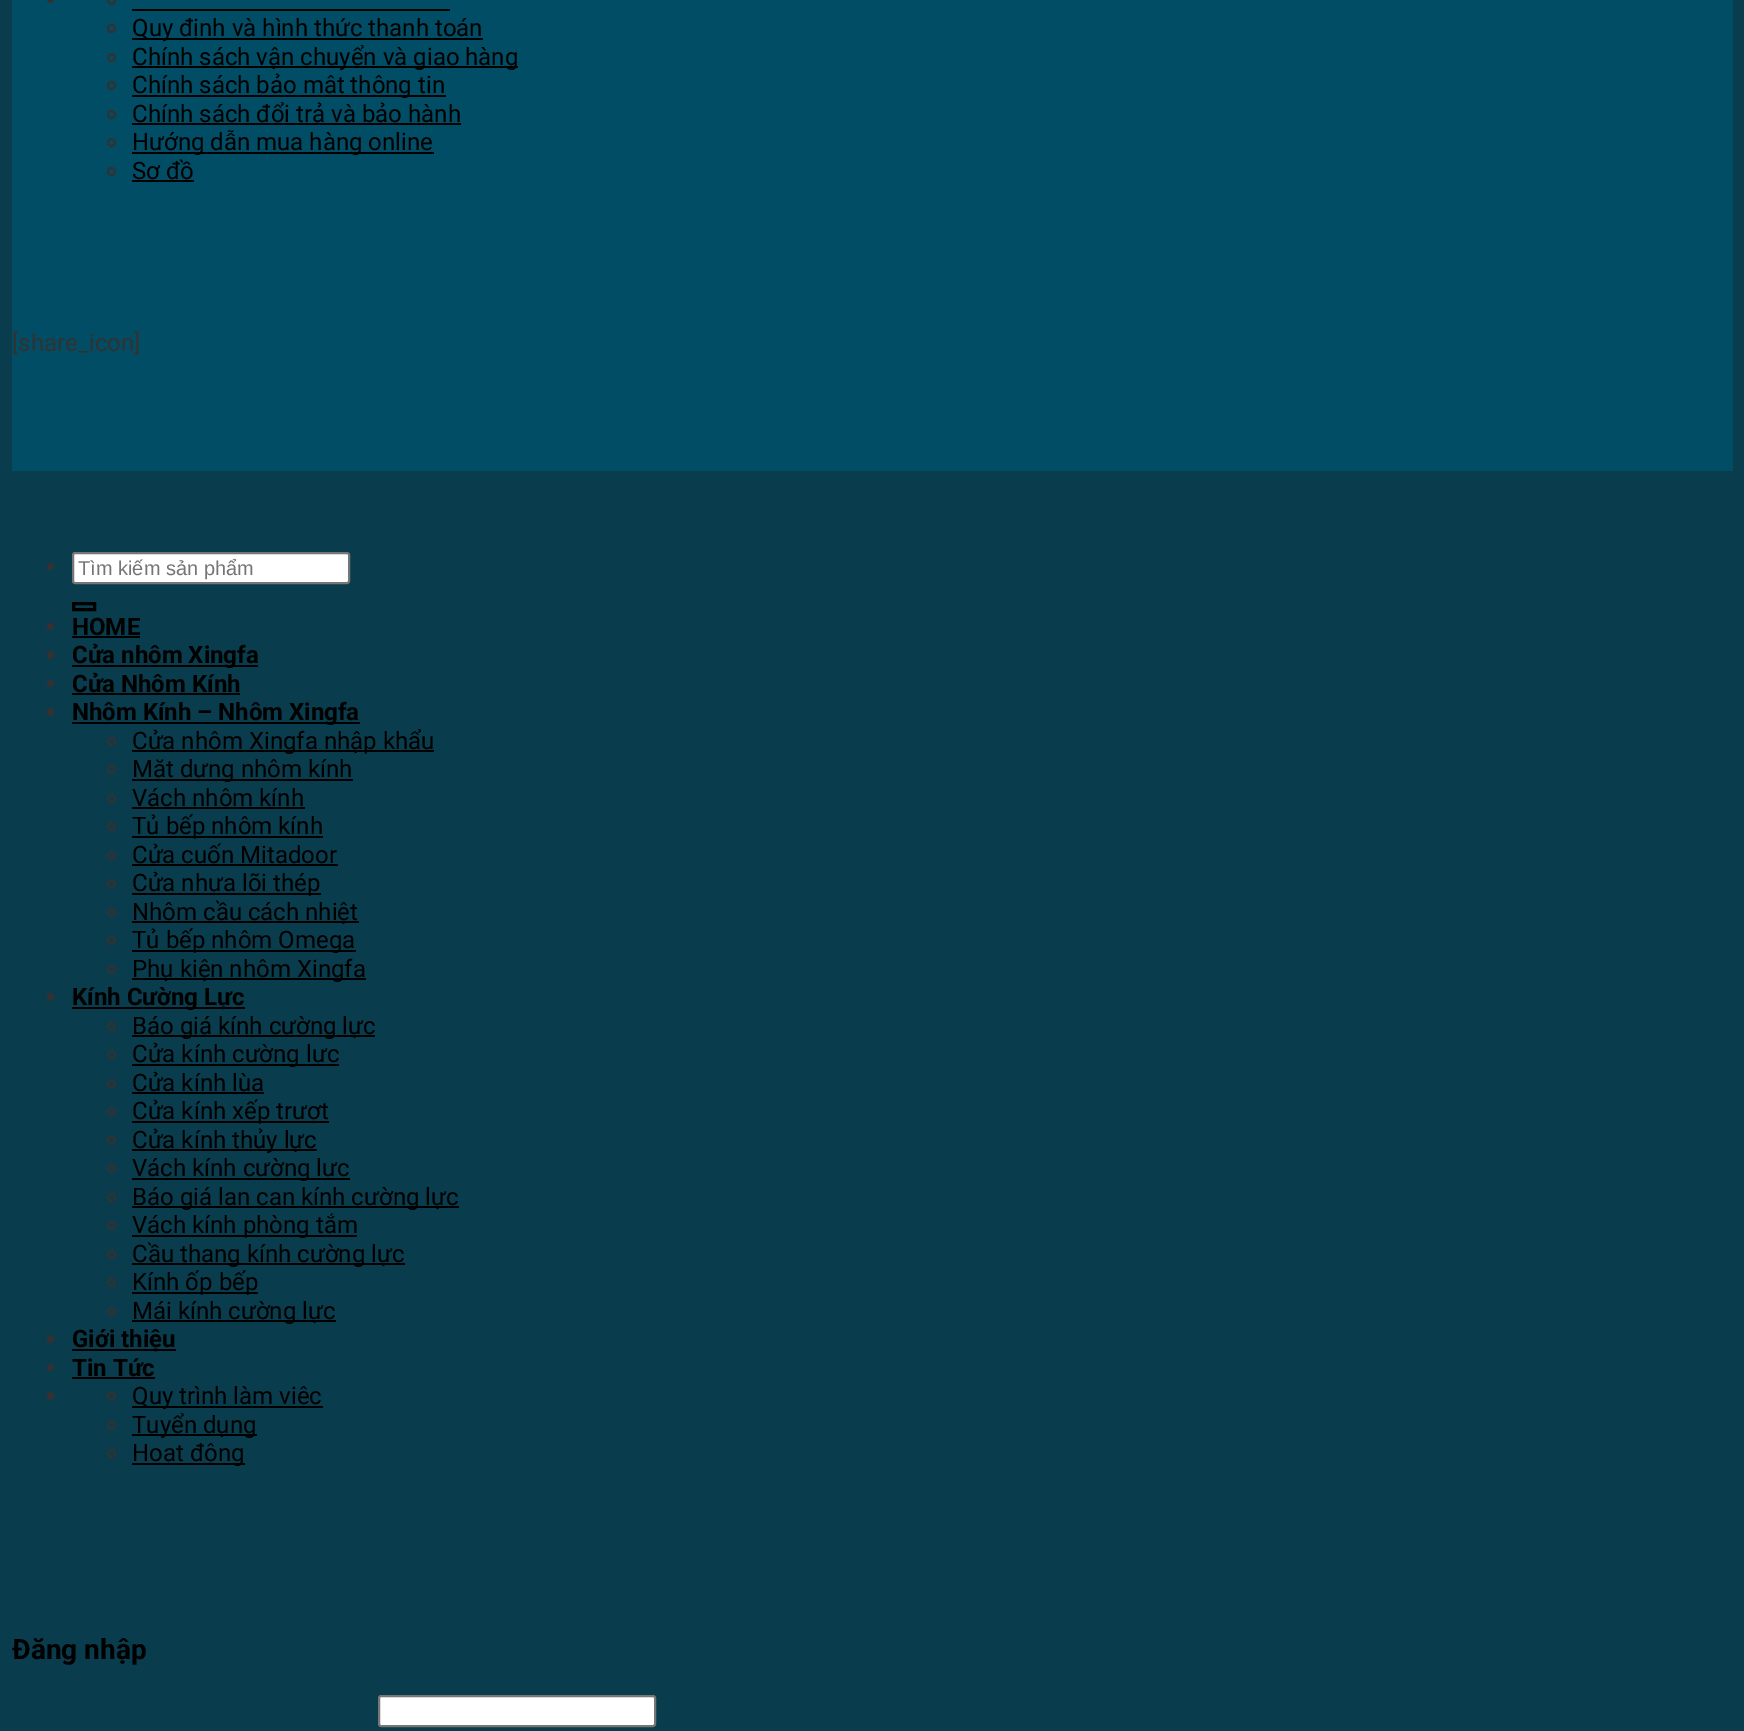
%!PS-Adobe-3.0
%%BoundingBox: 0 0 1744 1731
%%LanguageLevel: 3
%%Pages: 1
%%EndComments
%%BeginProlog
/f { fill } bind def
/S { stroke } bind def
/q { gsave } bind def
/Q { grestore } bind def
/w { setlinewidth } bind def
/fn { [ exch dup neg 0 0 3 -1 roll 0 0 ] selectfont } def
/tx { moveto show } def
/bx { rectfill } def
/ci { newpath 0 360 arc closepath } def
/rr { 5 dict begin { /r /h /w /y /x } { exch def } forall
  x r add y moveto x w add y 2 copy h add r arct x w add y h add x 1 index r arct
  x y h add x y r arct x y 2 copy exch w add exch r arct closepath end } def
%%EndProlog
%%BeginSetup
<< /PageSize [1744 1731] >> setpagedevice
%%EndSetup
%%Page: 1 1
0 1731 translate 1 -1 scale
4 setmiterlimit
0.035 0.235 0.298 setrgbcolor
0 0 1744 1731 bx
0 0.302 0.396 setrgbcolor
12 0 1721 471 bx
0.2 0.196 0.196 setrgbcolor
50.5 -0.5 3.5 ci f
2 w
111.5 0.5 3.5 ci S
0 setgray
132 9 318 2 bx
0.2 0.196 0.196 setrgbcolor
111.5 28.5 3.5 ci S
0 setgray
132 38 351 2 bx
/Roboto-Regular 24 fn
(Quy định và hình thức thanh toán) 132 36 tx
0.2 0.196 0.196 setrgbcolor
111.5 57.5 3.5 ci S
0 setgray
132 66 386 2 bx
(Chính sách vận chuyển và giao hàng) 132 65 tx
0.2 0.196 0.196 setrgbcolor
111.5 85.5 3.5 ci S
0 setgray
132 95 314 2 bx
(Chính sách bảo mật thông tin) 132 93 tx
0.2 0.196 0.196 setrgbcolor
111.5 114.5 3.5 ci S
0 setgray
(Chính sách đổi trả và bảo hành) 132 122 tx
132 123 329 2 bx
0.2 0.196 0.196 setrgbcolor
111.5 142.5 3.5 ci S
0 setgray
132 152 302 2 bx
(Hướng dẫn mua hàng online) 132 150 tx
0.2 0.196 0.196 setrgbcolor
111.5 171.5 3.5 ci S
0 setgray
(Sơ đồ) 132 179 tx
132 180 62 2 bx
0.2 0.196 0.196 setrgbcolor
([share_icon]) 12 351 tx
50.5 566.5 3.5 ci f
1 setgray
73 553 276 30 2 rr q f Q
0.463 setgray
S
/LiberationSans-Regular 20 fn
0.459 setgray
(Tìm kiếm sản phẩm) 78 575 tx
0 setgray
3 w
73.5 603.5 21 6 rectstroke
0.2 0.196 0.196 setrgbcolor
50.5 626.5 3.5 ci f
/Roboto-Bold 24 fn
0 setgray
(HOME) 72 635 tx
72 636 68 2 bx
0.2 0.196 0.196 setrgbcolor
47 651 7 8 3.5 rr f
0 setgray
72 665 186 2 bx
(Cửa nhôm Xingfa) 72 663 tx
0.2 0.196 0.196 setrgbcolor
50.5 683.5 3.5 ci f
0 setgray
(Cửa Nhôm Kính) 72 692 tx
72 693 168 2 bx
0.2 0.196 0.196 setrgbcolor
47 708 7 8 3.5 rr f
0 setgray
72 722 288 2 bx
(Nhôm Kính – Nhôm Xingfa) 72 720 tx
0.2 0.196 0.196 setrgbcolor
2 w
111.5 741.5 3.5 ci S
0 setgray
132 750 302 2 bx
/Roboto-Regular 24 fn
(Cửa nhôm Xingfa nhập khẩu) 132 749 tx
0.2 0.196 0.196 setrgbcolor
111.5 769.5 3.5 ci S
0 setgray
132 779 221 2 bx
(Mặt dựng nhôm kính) 132 777 tx
0.2 0.196 0.196 setrgbcolor
111.5 798.5 3.5 ci S
0 setgray
(Vách nhôm kính) 132 806 tx
132 807 173 2 bx
0.2 0.196 0.196 setrgbcolor
111.5 826.5 3.5 ci S
0 setgray
132 836 191 2 bx
(Tủ bếp nhôm kính) 132 834 tx
0.2 0.196 0.196 setrgbcolor
111.5 855.5 3.5 ci S
0 setgray
(Cửa cuốn Mitadoor) 132 863 tx
132 864 206 2 bx
0.2 0.196 0.196 setrgbcolor
111.5 883.5 3.5 ci S
0 setgray
132 893 189 2 bx
(Cửa nhựa lõi thép) 132 891 tx
0.2 0.196 0.196 setrgbcolor
111.5 912.5 3.5 ci S
0 setgray
132 921 227 2 bx
(Nhôm cầu cách nhiệt) 132 920 tx
0.2 0.196 0.196 setrgbcolor
111.5 940.5 3.5 ci S
0 setgray
132 950 224 2 bx
(Tủ bếp nhôm Omega) 132 948 tx
0.2 0.196 0.196 setrgbcolor
111.5 969.5 3.5 ci S
0 setgray
132 978 234 2 bx
(Phụ kiện nhôm Xingfa) 132 977 tx
0.2 0.196 0.196 setrgbcolor
47 993 7 8 3.5 rr f
0 setgray
72 1007 173 2 bx
/Roboto-Bold 24 fn
(Kính Cường Lực) 72 1005 tx
0.2 0.196 0.196 setrgbcolor
111.5 1026.5 3.5 ci S
0 setgray
132 1035 243 2 bx
/Roboto-Regular 24 fn
(Báo giá kính cường lực) 132 1034 tx
0.2 0.196 0.196 setrgbcolor
111.5 1054.5 3.5 ci S
0 setgray
132 1064 207 2 bx
(Cửa kính cường lực) 132 1062 tx
0.2 0.196 0.196 setrgbcolor
111.5 1083.5 3.5 ci S
0 setgray
(Cửa kính lùa) 132 1091 tx
132 1092 132 2 bx
0.2 0.196 0.196 setrgbcolor
111.5 1111.5 3.5 ci S
0 setgray
132 1121 197 2 bx
(Cửa kính xếp trượt) 132 1119 tx
0.2 0.196 0.196 setrgbcolor
111.5 1140.5 3.5 ci S
0 setgray
132 1149 185 2 bx
(Cửa kính thủy lực) 132 1148 tx
0.2 0.196 0.196 setrgbcolor
111.5 1168.5 3.5 ci S
0 setgray
132 1178 218 2 bx
(Vách kính cường lực) 132 1176 tx
0.2 0.196 0.196 setrgbcolor
111.5 1197.5 3.5 ci S
0 setgray
132 1206 327 2 bx
(Báo giá lan can kính cường lực) 132 1205 tx
0.2 0.196 0.196 setrgbcolor
111.5 1225.5 3.5 ci S
0 setgray
132 1235 225 2 bx
(Vách kính phòng tắm) 132 1233 tx
0.2 0.196 0.196 setrgbcolor
111.5 1254.5 3.5 ci S
0 setgray
132 1263 273 2 bx
(Cầu thang kính cường lực) 132 1262 tx
0.2 0.196 0.196 setrgbcolor
111.5 1282.5 3.5 ci S
0 setgray
132 1292 126 2 bx
(Kính ốp bếp) 132 1290 tx
0.2 0.196 0.196 setrgbcolor
111.5 1311.5 3.5 ci S
0 setgray
132 1320 204 2 bx
(Mái kính cường lực) 132 1319 tx
0.2 0.196 0.196 setrgbcolor
47 1335 7 8 3.5 rr f
0 setgray
72 1349 104 2 bx
/Roboto-Bold 24 fn
(Giới thiệu) 72 1347 tx
0.2 0.196 0.196 setrgbcolor
50.5 1367.5 3.5 ci f
0 setgray
(Tin Tức) 72 1376 tx
72 1377 83 2 bx
0.2 0.196 0.196 setrgbcolor
47 1392 7 8 3.5 rr f
111.5 1396.5 3.5 ci S
0 setgray
132 1406 191 2 bx
/Roboto-Regular 24 fn
(Quy trình làm việc) 132 1404 tx
0.2 0.196 0.196 setrgbcolor
111.5 1425.5 3.5 ci S
0 setgray
132 1434 125 2 bx
(Tuyển dụng) 132 1433 tx
0.2 0.196 0.196 setrgbcolor
111.5 1453.5 3.5 ci S
0 setgray
132 1463 113 2 bx
(Hoạt động) 132 1461 tx
/Roboto-Bold 28 fn
(Đăng nhập) 12 1659 tx
1 setgray
379 1696 276 30 2 rr q f Q
0.463 setgray
S
showpage
%%EOF
